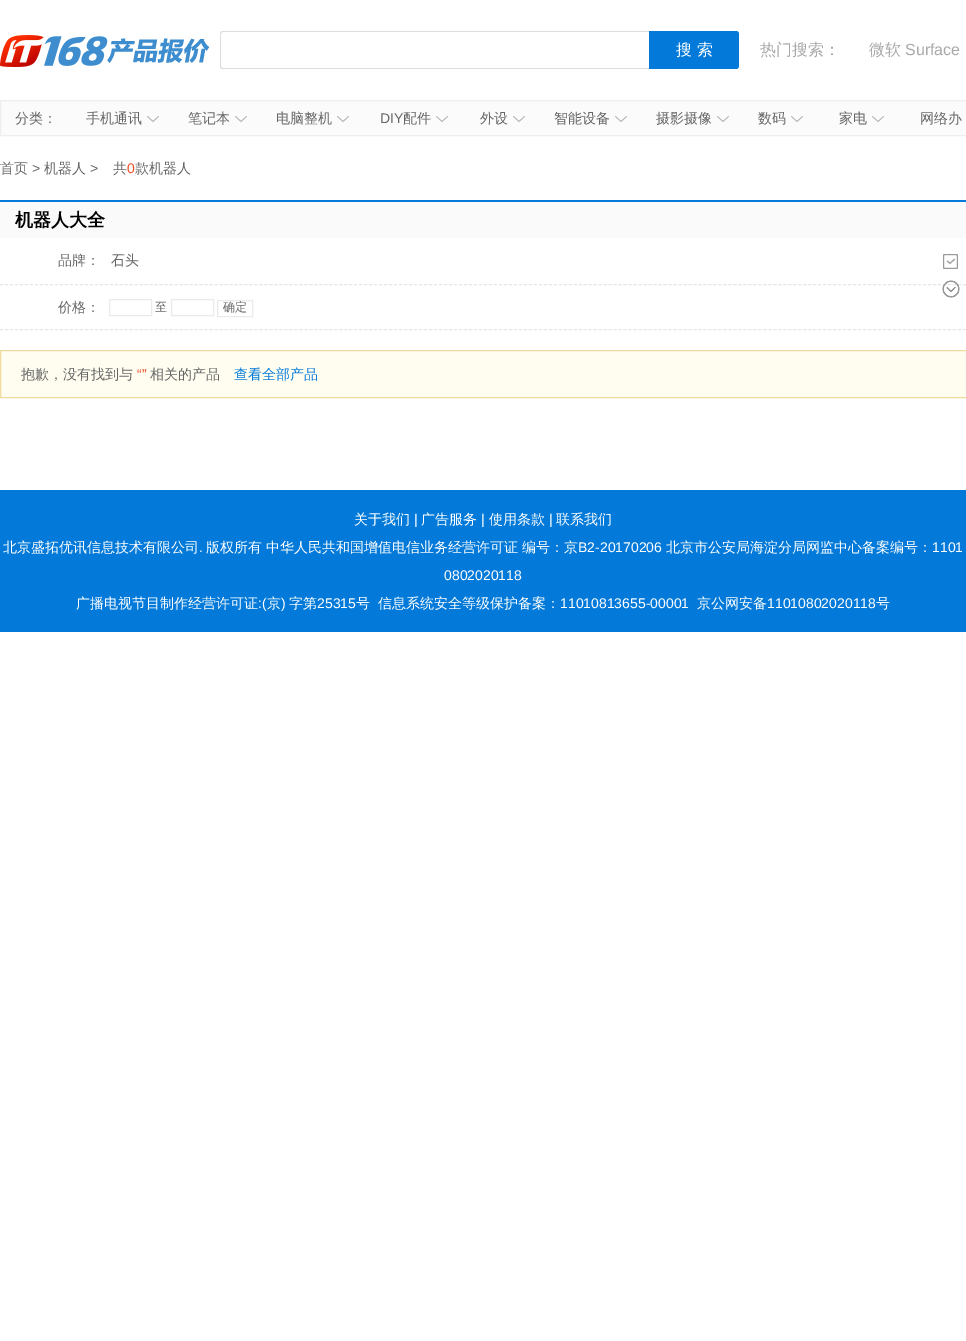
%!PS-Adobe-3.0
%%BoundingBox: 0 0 966 1341
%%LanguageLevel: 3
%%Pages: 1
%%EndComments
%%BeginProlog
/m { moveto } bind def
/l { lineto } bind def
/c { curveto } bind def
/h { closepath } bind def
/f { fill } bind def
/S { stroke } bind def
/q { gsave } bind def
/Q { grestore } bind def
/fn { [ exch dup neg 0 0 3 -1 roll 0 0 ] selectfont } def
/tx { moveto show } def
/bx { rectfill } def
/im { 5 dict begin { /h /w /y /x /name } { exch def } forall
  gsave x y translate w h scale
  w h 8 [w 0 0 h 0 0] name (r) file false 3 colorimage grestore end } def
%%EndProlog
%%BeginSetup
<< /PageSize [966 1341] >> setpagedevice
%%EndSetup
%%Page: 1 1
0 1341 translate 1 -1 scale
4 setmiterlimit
1 setgray
0 0 966 1341 bx
(image0.raw) 0 35 210 32 im
0.871 setgray
223 31 m 649 31 l 649 69 l 223 69 l 221 69 220 68 220 66 c 220 34 l 220 32 221 31 223 31 c h 223 32 m 649 32 l 649 68 l 223 68 l 222 68 221 67 221 66 c 221 34 l 221 33 222 32 223 32 c h eofill
0.012 0.478 0.851 setrgbcolor
649 31 m 736 31 l 737.5 31 739 32.5 739 34 c 739 66 l 739 67.5 737.5 69 736 69 c 649 69 l h f
/WenQuanYiZenHei-Medium 16 fn
1 setgray
(搜 索) 676 55 tx
0.663 setgray
(热门搜索：) 760 55 tx
(微软) 869 55 tx
/LiberationSans-Regular 16 fn
(Surface) 905 55 tx
0.984 setgray
0.5 100.5 m 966.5 100.5 l 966.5 135.5 l 0.5 135.5 l h q f Q
0.933 setgray
S
/WenQuanYiZenHei-Medium 14 fn
0.4 setgray
(分类：) 15 123 tx
(手机通讯) 86 123 tx
(image1.raw) 147 116 12 6 im
(笔记本) 188 123 tx
(image1.raw) 235 116 12 6 im
(电脑整机) 276 123 tx
(image1.raw) 337 116 12 6 im
/LiberationSans-Regular 14 fn
(DIY) 380 123 tx
/WenQuanYiZenHei-Medium 14 fn
(配件) 403 123 tx
(image1.raw) 436 116 12 6 im
(外设) 480 123 tx
(image1.raw) 513 116 12 6 im
(智能设备) 554 123 tx
(image1.raw) 615 116 12 6 im
(摄影摄像) 656 123 tx
(image1.raw) 717 116 12 6 im
(数码) 758 123 tx
(image1.raw) 791 116 12 6 im
(家电) 839 123 tx
(image1.raw) 872 116 12 6 im
(网络办) 920 123 tx
(首页) 0 173 tx
/LiberationSans-Regular 14 fn
(>) 32 173 tx
/WenQuanYiZenHei-Medium 14 fn
(机器人) 44 173 tx
/LiberationSans-Regular 14 fn
(>) 90 173 tx
/WenQuanYiZenHei-Medium 14 fn
(共) 113 173 tx
/LiberationSans-Regular 14 fn
0.937 0.298 0.129 setrgbcolor
(0) 127 173 tx
/WenQuanYiZenHei-Medium 14 fn
0.4 setgray
(款机器人) 135 173 tx
0.98 setgray
0 202 966 36 bx
0.012 0.478 0.851 setrgbcolor
0 200 966 2 bx
/WenQuanYiZenHei-Bold 18 fn
0 setgray
(机器人大全) 15 226 tx
0.902 setgray
[3 1.99] 0 setdash
0 284.5 m 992 284.5 l S
/WenQuanYiZenHei-Medium 14 fn
0.4 setgray
(品牌：) 58 265 tx
(石头) 111 265 tx
(image2.raw) 943 254 15 15 im
(image3.raw) 942 280 18 18 im
0.902 setgray
0 329.5 m 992 329.5 l S
0.4 setgray
(价格：) 58 312 tx
0.918 setgray
[] 0 setdash
109.5 299.5 42 16 rectstroke
/WenQuanYiZenHei-Medium 12 fn
0.4 setgray
(至) 155 311 tx
0.918 setgray
171.5 299.5 42 16 rectstroke
217.5 300.5 35 16 rectstroke
0.4 setgray
(确定) 223 311 tx
1 0.992 0.941 setrgbcolor
0.5 350.5 m 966.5 350.5 l 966.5 397.5 l 0.5 397.5 l h q f Q
0.941 0.859 0.62 setrgbcolor
S
/WenQuanYiZenHei-Medium 14 fn
0.4 setgray
(抱歉，没有找到与) 21 379 tx
/LiberationSans-Regular 14 fn
0.937 0.298 0.129 setrgbcolor
(“”) 137 379 tx
/WenQuanYiZenHei-Medium 14 fn
0.4 setgray
(相关的产品) 150 379 tx
0.012 0.478 0.851 setrgbcolor
(查看全部产品) 234 379 tx
0 490 966 142 bx
1 setgray
(关于我们) 354 524 tx
/LiberationSans-Regular 14 fn
(|) 414 524 tx
/WenQuanYiZenHei-Medium 14 fn
(广告服务) 421 524 tx
/LiberationSans-Regular 14 fn
(|) 481 524 tx
/WenQuanYiZenHei-Medium 14 fn
(使用条款) 489 524 tx
/LiberationSans-Regular 14 fn
(|) 549 524 tx
/WenQuanYiZenHei-Medium 14 fn
(联系我们) 556 524 tx
(北京盛拓优讯信息技术有限公司) 3 552 tx
/LiberationSans-Regular 14 fn
(.) 199 552 tx
/WenQuanYiZenHei-Medium 14 fn
(版权所有) 206 552 tx
(中华人民共和国增值电信业务经营许可证) 266 552 tx
(编号：京) 522 552 tx
/LiberationSans-Regular 14 fn
(B2-20170206) 578 552 tx
/WenQuanYiZenHei-Medium 14 fn
(北京市公安局海淀分局网监中心备案编号：) 666 552 tx
/LiberationSans-Regular 14 fn
(1101) 932 552 tx
(0802020118) 444 580 tx
/WenQuanYiZenHei-Medium 14 fn
(广播电视节目制作经营许可证) 76 608 tx
/LiberationSans-Regular 14 fn
(:\() 258 608 tx
/WenQuanYiZenHei-Medium 14 fn
(京) 267 608 tx
/LiberationSans-Regular 14 fn
(\)) 281 608 tx
/WenQuanYiZenHei-Medium 14 fn
(字第) 289 608 tx
/LiberationSans-Regular 14 fn
(25315) 317 608 tx
/WenQuanYiZenHei-Medium 14 fn
(号) 356 608 tx
(信息系统安全等级保护备案：) 378 608 tx
/LiberationSans-Regular 14 fn
(11010813655-00001) 560 608 tx
/WenQuanYiZenHei-Medium 14 fn
(京公网安备) 697 608 tx
/LiberationSans-Regular 14 fn
(11010802020118) 767 608 tx
/WenQuanYiZenHei-Medium 14 fn
(号) 876 608 tx
showpage
%%EOF
